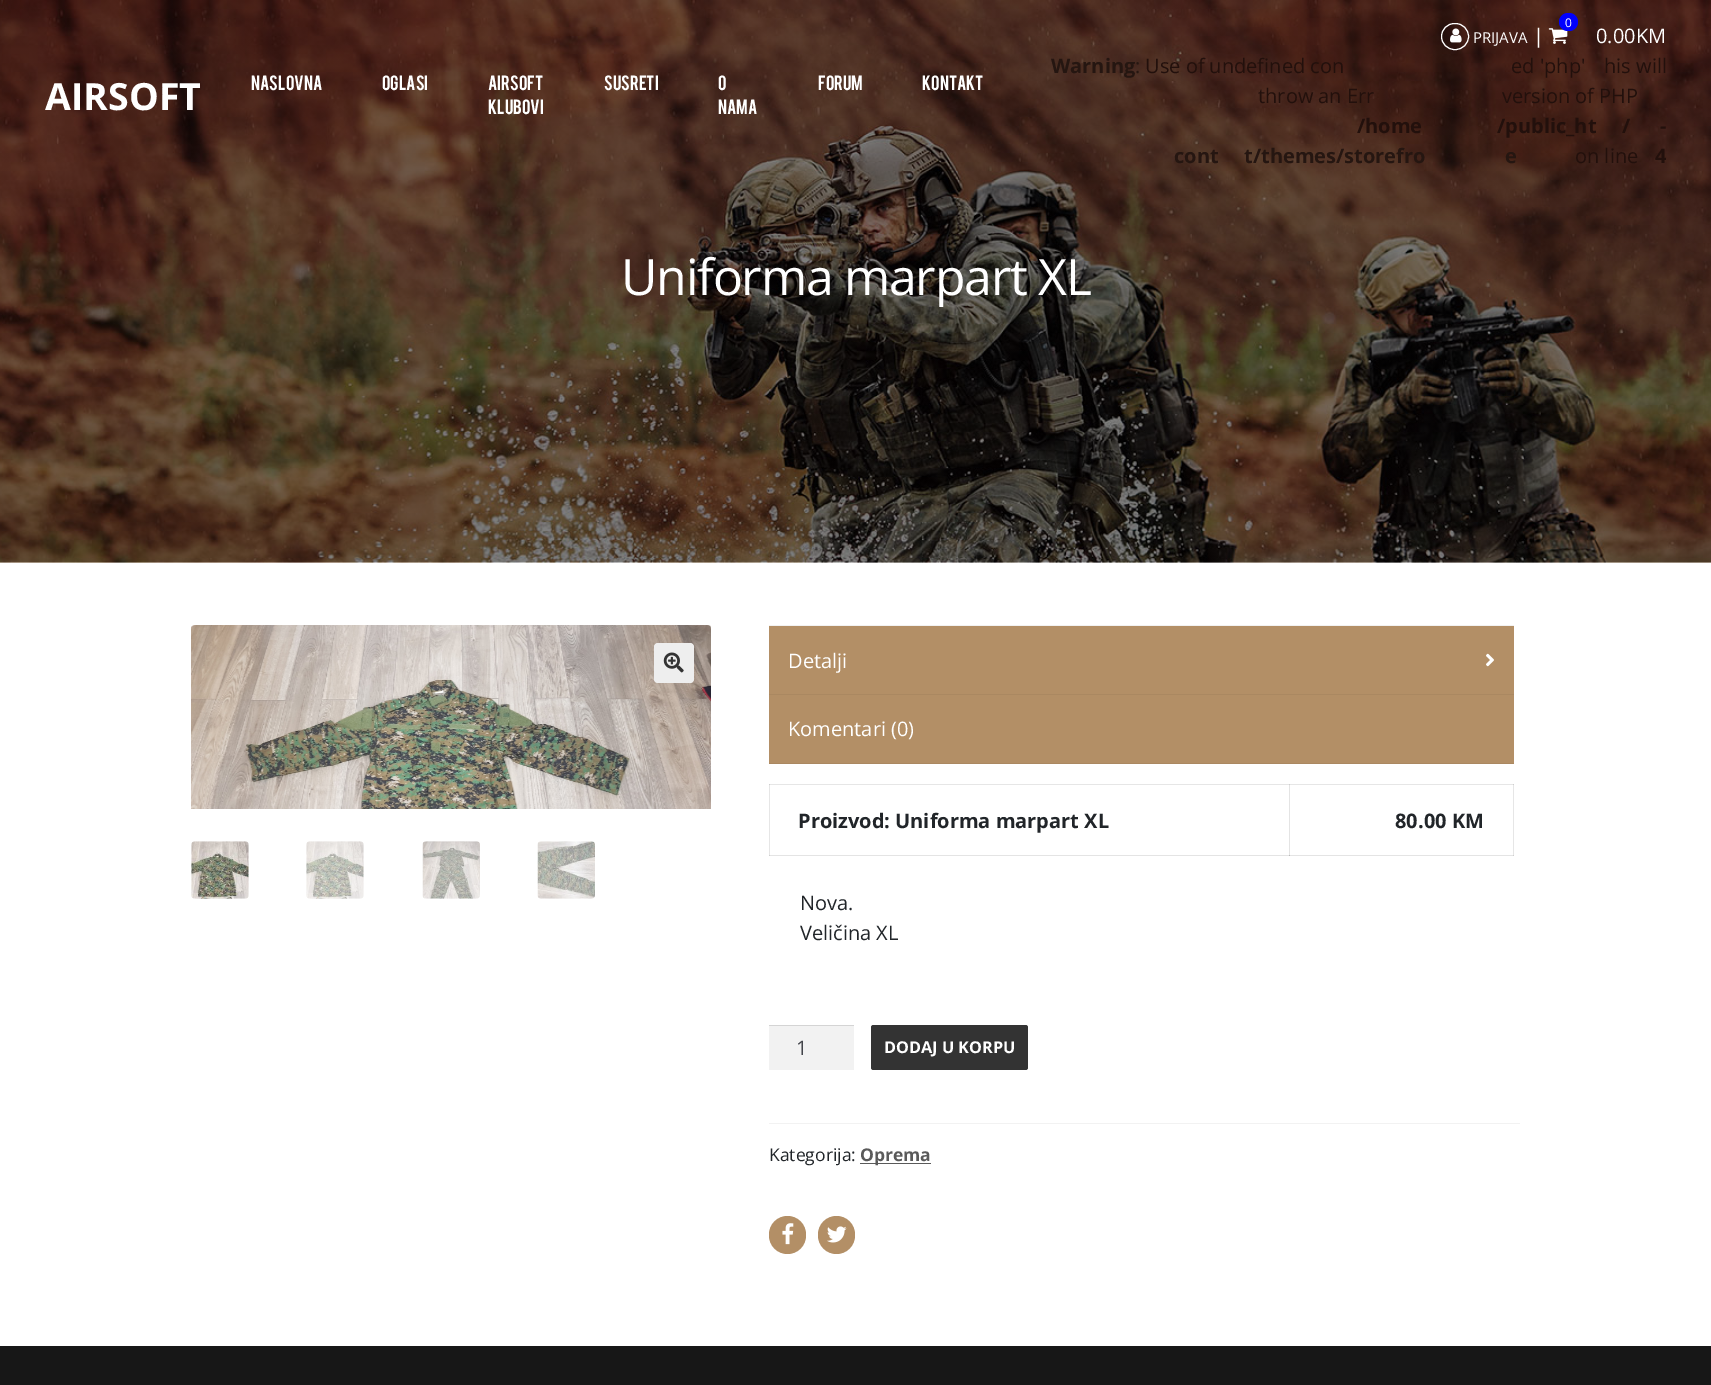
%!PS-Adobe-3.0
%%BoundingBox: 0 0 1711 1385
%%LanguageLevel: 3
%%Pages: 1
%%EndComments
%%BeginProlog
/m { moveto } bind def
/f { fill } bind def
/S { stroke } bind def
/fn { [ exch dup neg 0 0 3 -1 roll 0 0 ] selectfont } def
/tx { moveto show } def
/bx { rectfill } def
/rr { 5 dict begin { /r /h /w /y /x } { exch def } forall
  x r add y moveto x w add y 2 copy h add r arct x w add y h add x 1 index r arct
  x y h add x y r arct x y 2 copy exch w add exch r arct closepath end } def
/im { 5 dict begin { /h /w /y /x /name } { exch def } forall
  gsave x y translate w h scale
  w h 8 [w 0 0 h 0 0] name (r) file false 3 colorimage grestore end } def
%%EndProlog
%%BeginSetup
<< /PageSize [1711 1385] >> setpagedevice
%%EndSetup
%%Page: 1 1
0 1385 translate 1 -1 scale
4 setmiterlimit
1 setgray
0 0 1711 1385 bx
0.902 setgray
1513 784 1 72 bx
0.812 setgray
1513 855 1 1 bx
0.902 setgray
769 784 1 72 bx
0.812 setgray
769 855 1 1 bx
(image2.raw) 0 0 1711 563 im
/OpenSans-Bold 37.5 fn
1 setgray
(AIRSOFT) 45 110 tx
/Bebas-Regular 16.25 fn
(NASLOVNA) 251 90 tx
(OGLASI) 382 90 tx
(AIRSOFT) 488 90 tx
(KLUBOVI) 488 114 tx
(SUSRETI) 604 90 tx
(O) 718 90 tx
(NAMA) 718 114 tx
(FORUM) 818 90 tx
(KONTAKT) 922 90 tx
1441.5 23.5 27 26 13 rr S
(image0.raw) 1450 28 12 15 im
/OpenSans-Regular 15 fn
(PRIJAVA) 1473 43 tx
/OpenSans-Regular 20 fn
(|) 1533 43 tx
(image1.raw) 1548 28 20 16 im
0 0 1 setrgbcolor
1559 13 19 18 9 rr f
/OpenSans-Regular 12 fn
1 setgray
(0) 1565 27 tx
/OpenSans-Regular 20 fn
(0.00KM) 1596 43 tx
/OpenSans-Bold 20 fn
0.145 0.086 0.067 setrgbcolor
(Warning) 1051 73 tx
/OpenSans-Regular 20 fn
(:) 1135 73 tx
0.133 0.063 0.047 setrgbcolor
(Use of undefined con) 1145 73 tx
(ed 'php') 1511 73 tx
(his will) 1604 73 tx
(throw an Err) 1258 103 tx
(version of PHP) 1502 103 tx
/OpenSans-Bold 20 fn
(/home) 1357 133 tx
(/public_ht) 1497 133 tx
(/) 1622 133 tx
(-) 1660 133 tx
0.145 0.086 0.067 setrgbcolor
(cont) 1174 163 tx
(t/themes/storefro) 1244 163 tx
(e) 1505 163 tx
/OpenSans-Regular 20 fn
0.133 0.063 0.047 setrgbcolor
(on line) 1575 163 tx
/OpenSans-Bold 20 fn
(4) 1655 163 tx
/OpenSans-Regular 50 fn
1 setgray
621 295 m -1.25 0 (Uniforma marpart XL) ashow
(image3.raw) 191 625 520 184 im
0.933 setgray
654 643 40 40 4 rr f
(image4.raw) 663 652 21 21 im
(image5.raw) 191 841 58 58 im
(image6.raw) 306 841 58 58 im
(image7.raw) 422 841 58 58 im
(image8.raw) 537 841 58 58 im
0.949 setgray
769 625 745 1 bx
0.702 0.561 0.4 setrgbcolor
769 626 745 68 bx
0.667 0.533 0.38 setrgbcolor
769 694 745 1 bx
/OpenSans-Regular 20 fn
1 setgray
(Detalji) 788 668 tx
(image9.raw) 1486 653 8 14 im
0.702 0.561 0.4 setrgbcolor
769 695 745 68 bx
0.667 0.533 0.38 setrgbcolor
769 763 745 1 bx
1 setgray
(Komentari \(0\)) 788 736 tx
0.902 setgray
769 784 745 1 bx
0.812 setgray
1289 784 1 1 bx
1513 784 1 1 bx
769 784 1 1 bx
0.894 setgray
770 855 743 1 bx
1289 785 1 71 bx
0.725 setgray
1289 855 1 1 bx
/OpenSans-Bold 20 fn
0.129 0.145 0.161 setrgbcolor
(Proizvod: Uniforma marpart XL) 798 828 tx
(80.00 KM) 1395 828 tx
/OpenSans-Regular 20 fn
(Nova.) 800 910 tx
(Veličina XL) 800 940 tx
0.949 setgray
769 1026 85 44 bx
0.831 setgray
769 1025 85 1 bx
0.263 0.271 0.294 setrgbcolor
(1) 796 1055 tx
0.2 setgray
871 1025 157 45 2.5 rr f
/OpenSans-Bold 16.25 fn
1 setgray
(DODAJ U KORPU) 884 1053 tx
0.949 setgray
769 1123 751 1 bx
/OpenSans-Regular 17.5 fn
0.129 0.145 0.161 setrgbcolor
(Kategorija:) 769 1161 tx
0.353 setgray
860 1163 71 1 bx
/OpenSans-Bold 17.5 fn
(Oprema) 860 1161 tx
0.702 0.561 0.4 setrgbcolor
769 1216 37 38 18.5 rr f
(image10.raw) 782 1223 12 22 im
818 1216 37 38 18.5 rr f
(image11.raw) 827 1226 20 17 im
0.09 setgray
0 1346 1711 39 bx
showpage
%%EOF
